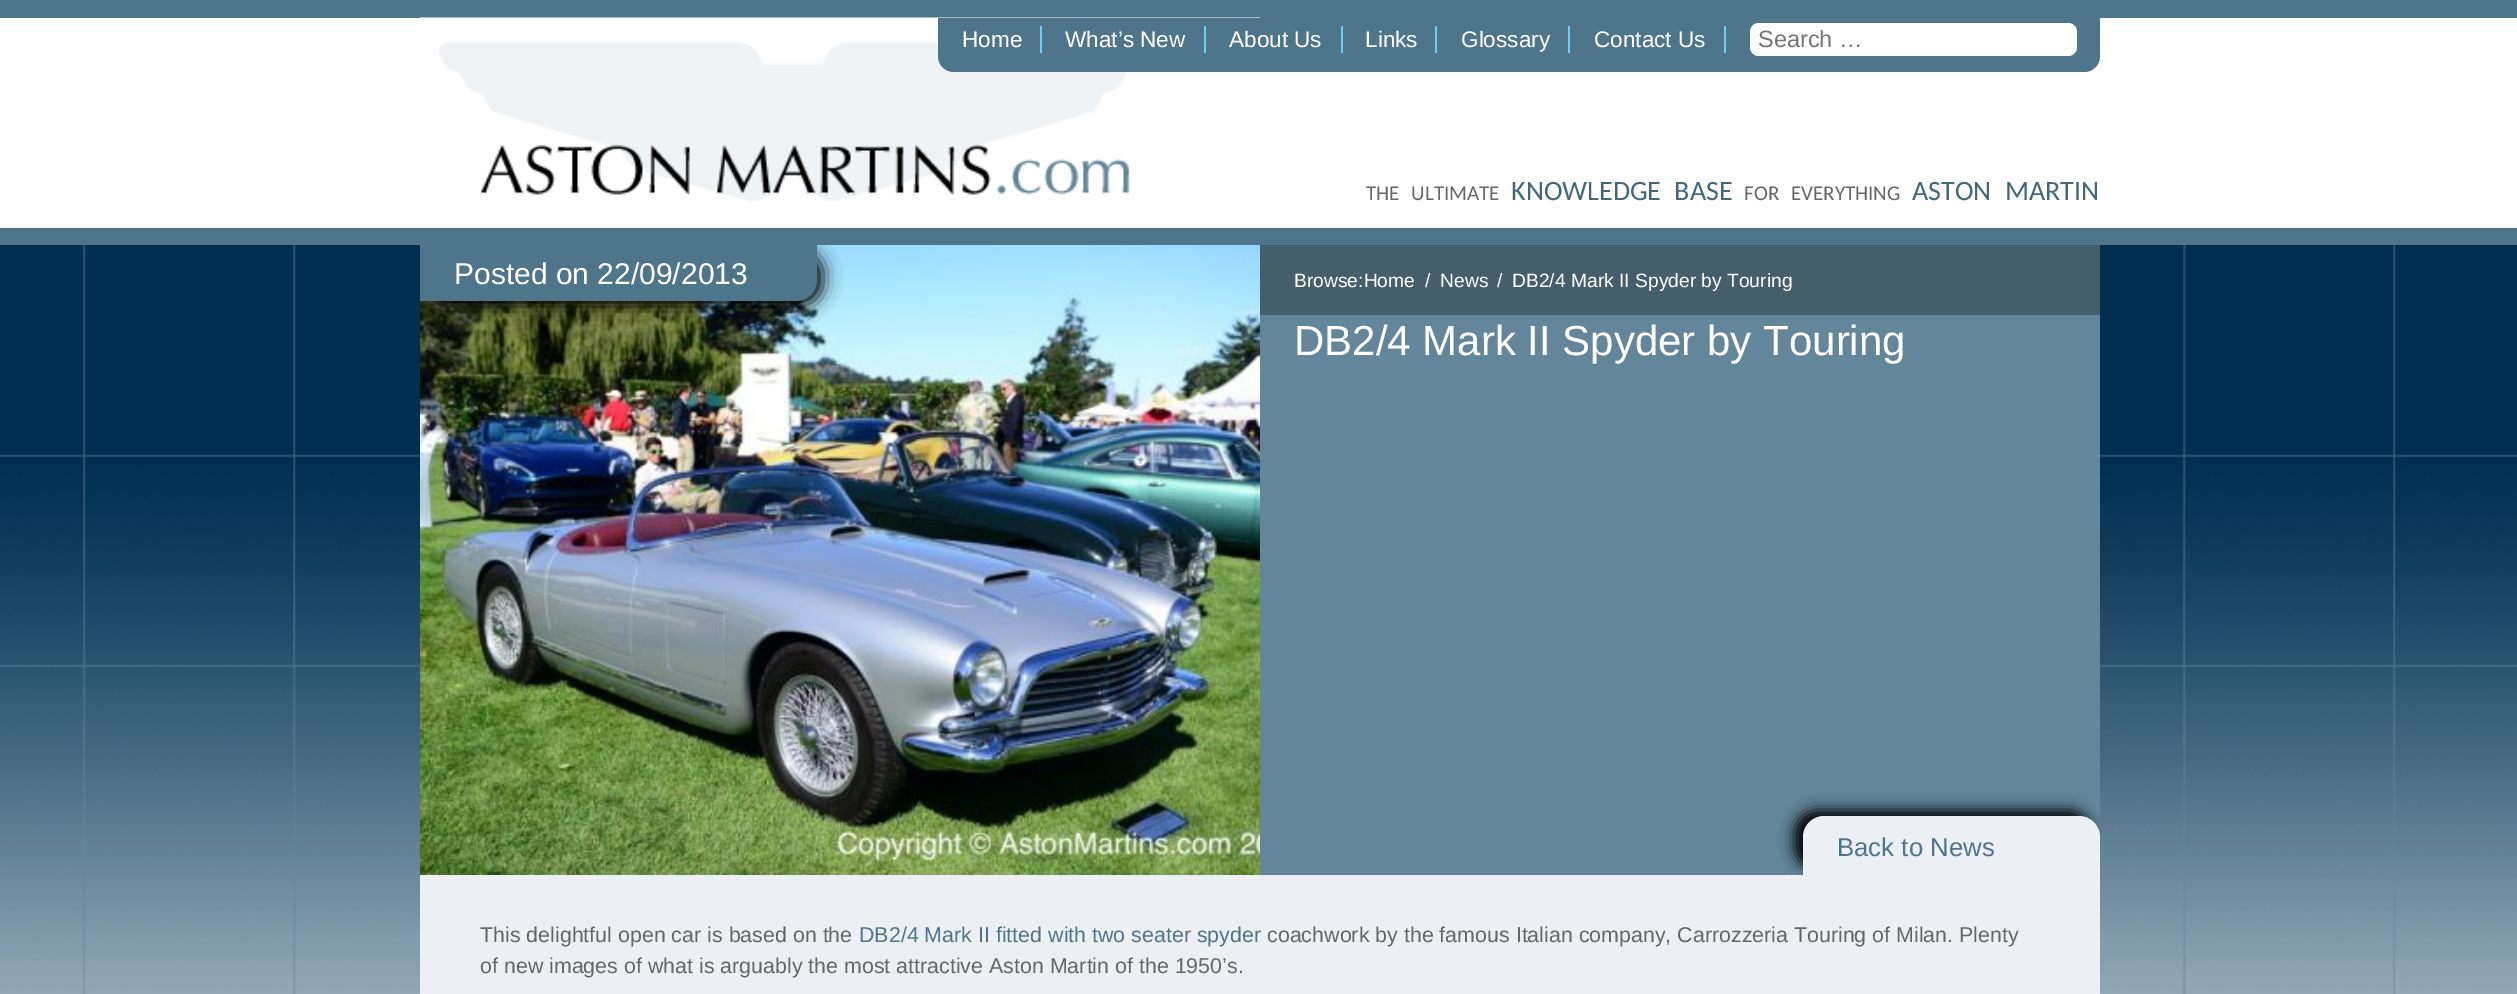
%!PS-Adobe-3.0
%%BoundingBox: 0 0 2517 994
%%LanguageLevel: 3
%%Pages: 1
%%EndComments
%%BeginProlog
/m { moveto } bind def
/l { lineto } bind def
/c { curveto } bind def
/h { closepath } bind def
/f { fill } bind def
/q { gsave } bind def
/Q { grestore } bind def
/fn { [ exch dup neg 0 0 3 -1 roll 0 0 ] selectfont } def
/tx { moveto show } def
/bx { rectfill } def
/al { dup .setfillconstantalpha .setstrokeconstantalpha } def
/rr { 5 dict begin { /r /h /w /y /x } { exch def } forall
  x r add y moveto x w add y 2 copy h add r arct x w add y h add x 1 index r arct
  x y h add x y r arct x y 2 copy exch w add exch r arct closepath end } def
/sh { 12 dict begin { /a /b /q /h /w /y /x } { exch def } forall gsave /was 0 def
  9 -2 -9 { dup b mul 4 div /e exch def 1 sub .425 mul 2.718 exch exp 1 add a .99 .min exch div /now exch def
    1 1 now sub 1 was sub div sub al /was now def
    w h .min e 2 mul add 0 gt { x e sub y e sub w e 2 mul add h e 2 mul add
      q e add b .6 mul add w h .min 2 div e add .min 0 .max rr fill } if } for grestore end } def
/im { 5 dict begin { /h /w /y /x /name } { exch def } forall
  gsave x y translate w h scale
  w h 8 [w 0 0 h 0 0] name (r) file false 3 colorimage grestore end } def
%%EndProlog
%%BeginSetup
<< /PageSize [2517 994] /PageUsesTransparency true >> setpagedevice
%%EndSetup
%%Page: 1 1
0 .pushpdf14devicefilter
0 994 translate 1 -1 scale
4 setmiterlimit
1 setgray
0 0 2517 994 bx
0.31 0.459 0.541 setrgbcolor
0 0 2517 18 bx
(image0.raw) 420 17 840 185 im
938 18 m 2100 18 l 2100 56 l 2100 65 2093 72 2084 72 c 954 72 l 945 72 938 65 938 56 c h f
/LiberationSans-Regular 22.5 fn
1 setgray
(Home) 962 47 tx
0.427 0.812 0.965 setrgbcolor
1040 26 2 27 bx
1 setgray
(What’s New) 1065 47 tx
0.427 0.812 0.965 setrgbcolor
1204 26 2 27 bx
1 setgray
(About Us) 1229 47 tx
0.427 0.812 0.965 setrgbcolor
1341 26 2 27 bx
1 setgray
(Links) 1365 47 tx
0.427 0.812 0.965 setrgbcolor
1435 26 2 27 bx
1 setgray
(Glossary) 1461 47 tx
0.427 0.812 0.965 setrgbcolor
1568 26 2 27 bx
1 setgray
(Contact Us) 1594 47 tx
0.427 0.812 0.965 setrgbcolor
1724 26 2 27 bx
1 setgray
1750 23 327 33 9 rr f
/LiberationSans-Regular 23.5 fn
0.459 setgray
(Search …) 1758 47 tx
/Carlito-Regular 21 fn
0.4 setgray
1366 200 m 7 0 32 (THE ULTIMATE) widthshow
/Carlito-Regular 28 fn
0.263 0.404 0.482 setrgbcolor
1511 200 m 7 0 32 (KNOWLEDGE BASE) widthshow
/Carlito-Regular 21 fn
0.4 setgray
1744 200 m 7 0 32 (FOR EVERYTHING) widthshow
/Carlito-Regular 28 fn
0.263 0.404 0.482 setrgbcolor
1912 200 m 7 0 32 (ASTON MARTIN) widthshow
(image1.raw) 0 245 2517 749 im
0.31 0.459 0.541 setrgbcolor
0 228 2517 17 bx
0.388 0.525 0.604 setrgbcolor
1260 315 840 560 bx
(image2.raw) 420 245 840 630 im
q
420 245 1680 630 rectclip
0 setgray
425 250 398 56 21 9 1 sh
Q
0.31 0.459 0.541 setrgbcolor
420 245 m 817 245 l 817 280 l 817 291.5 807.5 301 796 301 c 420 301 l h f
/LiberationSans-Regular 30 fn
1 setgray
(Posted on 22/09/2013) 454 284 tx
0.271 0.369 0.424 setrgbcolor
1260 245 840 70 bx
/LiberationSans-Regular 19.25 fn
1 setgray
(Browse:Home) 1294 287 tx
(/) 1425 287 tx
(News) 1440 287 tx
(/) 1497 287 tx
(DB2/4 Mark II Spyder by Touring) 1512 287 tx
/LiberationSans-Regular 42 fn
(DB2/4 Mark II Spyder by Touring) 1294 355 tx
q
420 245 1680 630 rectclip
0 setgray
1794 810 297 60 21 7 1 sh
Q
0.925 0.941 0.957 setrgbcolor
1824 816 m 2079 816 l 2090.5 816 2100 825.5 2100 837 c 2100 875 l 1803 875 l 1803 837 l 1803 825.5 1812.5 816 1824 816 c h f
/LiberationSans-Regular 25.75 fn
0.31 0.459 0.541 setrgbcolor
(Back to News) 1837 856 tx
0.925 0.941 0.957 setrgbcolor
420 875 1680 119 bx
/LiberationSans-Regular 21.4 fn
0.4 setgray
(This delightful open car is based on the) 480 942 tx
0.31 0.459 0.541 setrgbcolor
(DB2/4 Mark II fitted with two seater spyder) 859 942 tx
0.4 setgray
(coachwork by the famous Italian company, Carrozzeria Touring of Milan. Plenty) 1267 942 tx
(of new images of what is arguably the most attractive Aston Martin of the 1950’s.) 480 973 tx
.poppdf14devicefilter showpage
%%EOF
